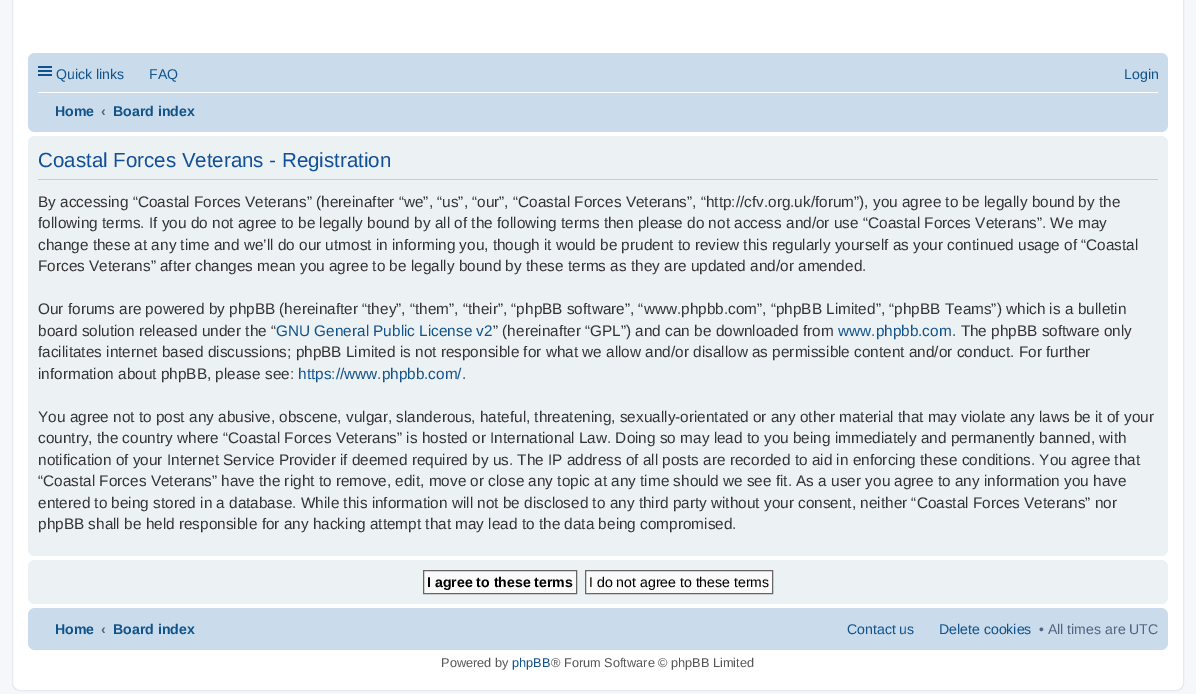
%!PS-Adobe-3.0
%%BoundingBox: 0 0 1196 694
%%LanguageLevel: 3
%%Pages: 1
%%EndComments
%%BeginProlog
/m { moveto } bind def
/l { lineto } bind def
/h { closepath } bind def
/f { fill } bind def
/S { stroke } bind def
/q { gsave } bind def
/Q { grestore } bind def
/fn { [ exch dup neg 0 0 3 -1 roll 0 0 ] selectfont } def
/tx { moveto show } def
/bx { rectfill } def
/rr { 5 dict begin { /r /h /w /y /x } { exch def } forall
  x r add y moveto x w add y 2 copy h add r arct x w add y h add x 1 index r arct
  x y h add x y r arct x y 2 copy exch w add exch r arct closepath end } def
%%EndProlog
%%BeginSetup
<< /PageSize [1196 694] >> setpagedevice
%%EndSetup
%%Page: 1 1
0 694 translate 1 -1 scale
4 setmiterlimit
0.961 0.969 0.98 setrgbcolor
0 0 1196 694 bx
1 setgray
12.5 -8.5 1171 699 7.5 rr q f Q
0.902 0.914 0.929 setrgbcolor
S
0.792 0.863 0.922 setrgbcolor
28 53 1140 79 7 rr f
0.063 0.322 0.537 setrgbcolor
38 66 14 2 bx
38 70 14 2 bx
38 74 14 2 bx
/LiberationSans-Regular 14.1 fn
(Quick links) 56 79 tx
(FAQ) 149 79 tx
(Login) 1124 79 tx
1 setgray
38 92 1120 1 bx
/LiberationSans-Bold 14.1 fn
0.063 0.322 0.537 setrgbcolor
(Home) 55 116 tx
0.325 0.392 0.51 setrgbcolor
(‹) 101 116 tx
0.063 0.322 0.537 setrgbcolor
(Board index) 113 116 tx
0.925 0.945 0.953 setrgbcolor
28 136 1140 420 7 rr f
0.8 setgray
38 179 1120 1 bx
/LiberationSans-Regular 20.5 fn
0.067 0.314 0.596 setrgbcolor
(Coastal Forces Veterans - Registration) 38 167 tx
/LiberationSans-Regular 15.35 fn
0.2 setgray
(By accessing “Coastal Forces Veterans” \(hereinafter “we”, “us”, “our”, “Coastal Forces Veterans”, “http://cfv.org.uk/forum”\), you agree to be legally bound by the) 38 207 tx
(following terms. If you do not agree to be legally bound by all of the following terms then please do not access and/or use “Coastal Forces Veterans”. We may) 38 228 tx
(change these at any time and we’ll do our utmost in informing you, though it would be prudent to review this regularly yourself as your continued usage of “Coastal) 38 250 tx
(Forces Veterans” after changes mean you agree to be legally bound by these terms as they are updated and/or amended.) 38 271 tx
(Our forums are powered by phpBB \(hereinafter “they”, “them”, “their”, “phpBB software”, “www.phpbb.com”, “phpBB Limited”, “phpBB Teams”\) which is a bulletin) 38 314 tx
(board solution released under the “) 38 336 tx
0.063 0.322 0.537 setrgbcolor
(GNU General Public License v2) 276 336 tx
0.2 setgray
(” \(hereinafter “GPL”\) and can be downloaded from) 493 336 tx
0.063 0.322 0.537 setrgbcolor
(www.phpbb.com) 838 336 tx
0.2 setgray
(. The phpBB software only) 952 336 tx
(facilitates internet based discussions; phpBB Limited is not responsible for what we allow and/or disallow as permissible content and/or conduct. For further) 38 357 tx
(information about phpBB, please see:) 38 379 tx
0.063 0.322 0.537 setrgbcolor
(https://www.phpbb.com/) 298 379 tx
0.2 setgray
(.) 462 379 tx
(You agree not to post any abusive, obscene, vulgar, slanderous, hateful, threatening, sexually-orientated or any other material that may violate any laws be it of your) 38 422 tx
(country, the country where “Coastal Forces Veterans” is hosted or International Law. Doing so may lead to you being immediately and permanently banned, with) 38 443 tx
(notification of your Internet Service Provider if deemed required by us. The IP address of all posts are recorded to aid in enforcing these conditions. You agree that) 38 465 tx
(“Coastal Forces Veterans” have the right to remove, edit, move or close any topic at any time should we see fit. As a user you agree to any information you have) 38 486 tx
(entered to being stored in a database. While this information will not be disclosed to any third party without your consent, neither “Coastal Forces Veterans” nor) 38 508 tx
(phpBB shall be held responsible for any hacking attempt that may lead to the data being compromised.) 38 529 tx
0.925 0.945 0.953 setrgbcolor
28 560 1140 44 7 rr f
0.98 setgray
423.5 570.5 m 576.5 570.5 l 576.5 593.5 l 423.5 593.5 l h q f Q
0.4 setgray
S
/LiberationSans-Bold 14.1 fn
0 setgray
(I agree to these terms) 427 587 tx
0.98 setgray
585.5 570.5 m 772.5 570.5 l 772.5 593.5 l 585.5 593.5 l h q f Q
0.4 setgray
S
/LiberationSans-Regular 14.1 fn
0 setgray
(I do not agree to these terms) 589 587 tx
0.792 0.863 0.922 setrgbcolor
28 608 1140 42 7 rr f
/LiberationSans-Bold 14.1 fn
0.063 0.322 0.537 setrgbcolor
(Home) 55 634 tx
0.325 0.392 0.51 setrgbcolor
(‹) 101 634 tx
0.063 0.322 0.537 setrgbcolor
(Board index) 113 634 tx
/LiberationSans-Regular 14.1 fn
(Contact us) 847 634 tx
(Delete cookies) 939 634 tx
0.325 0.392 0.51 setrgbcolor
(• All times are UTC) 1039 634 tx
/LiberationSans-Regular 12.75 fn
0.333 setgray
(Powered by) 441 667 tx
0.063 0.322 0.537 setrgbcolor
(phpBB) 512 667 tx
0.333 setgray
(® Forum Software © phpBB Limited) 551 667 tx
showpage
%%EOF
